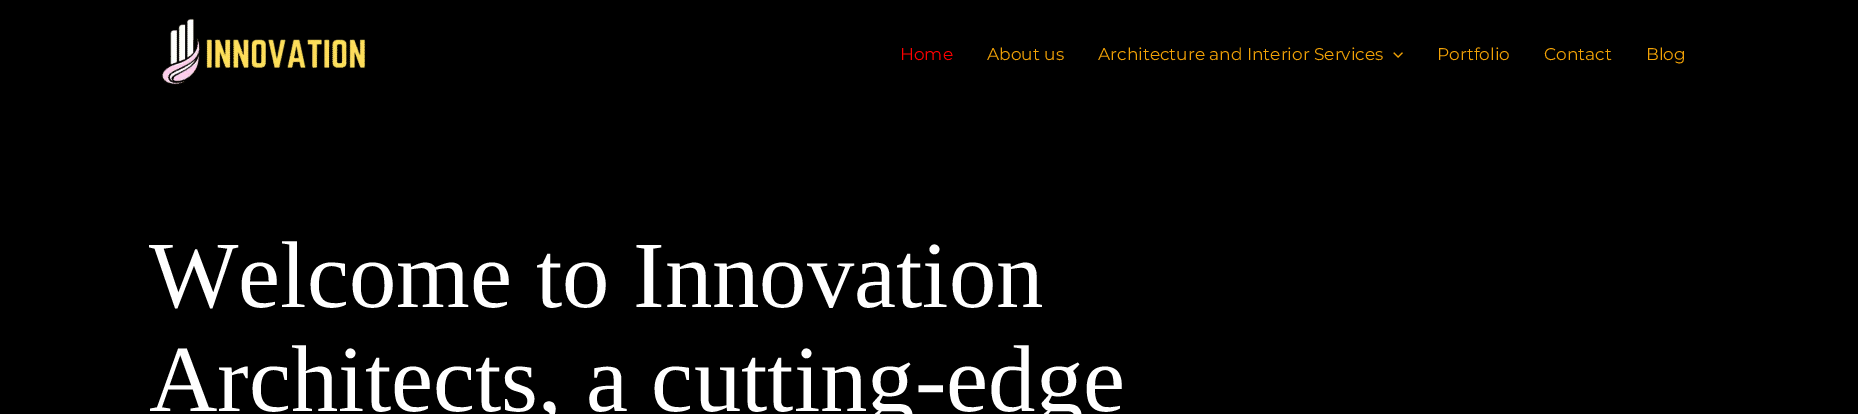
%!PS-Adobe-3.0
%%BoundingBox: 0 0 1858 414
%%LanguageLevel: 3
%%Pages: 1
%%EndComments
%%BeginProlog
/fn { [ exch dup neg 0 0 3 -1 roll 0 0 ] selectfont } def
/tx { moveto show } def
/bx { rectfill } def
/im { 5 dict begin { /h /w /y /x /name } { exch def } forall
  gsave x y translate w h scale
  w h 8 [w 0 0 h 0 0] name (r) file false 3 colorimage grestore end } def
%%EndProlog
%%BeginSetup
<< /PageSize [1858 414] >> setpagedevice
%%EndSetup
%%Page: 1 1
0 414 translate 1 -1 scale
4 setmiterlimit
0 setgray
0 0 1858 414 bx
(image0.raw) 161 18 205 68 im
/Montserrat-Regular 17 fn
1 0 0 setrgbcolor
(Home) 900 60 tx
0.949 0.635 0.024 setrgbcolor
(About us) 987 60 tx
(Architecture and Interior Services) 1098 60 tx
(image1.raw) 1393 52 10 6 im
(Portfolio) 1437 60 tx
(Contact) 1544 60 tx
(Blog) 1646 60 tx
/LiberationSerif-Regular 94.75 fn
1 setgray
(Welcome to Innovation) 149 307 tx
(Architects, a cutting-edge) 149 411 tx
showpage
%%EOF
